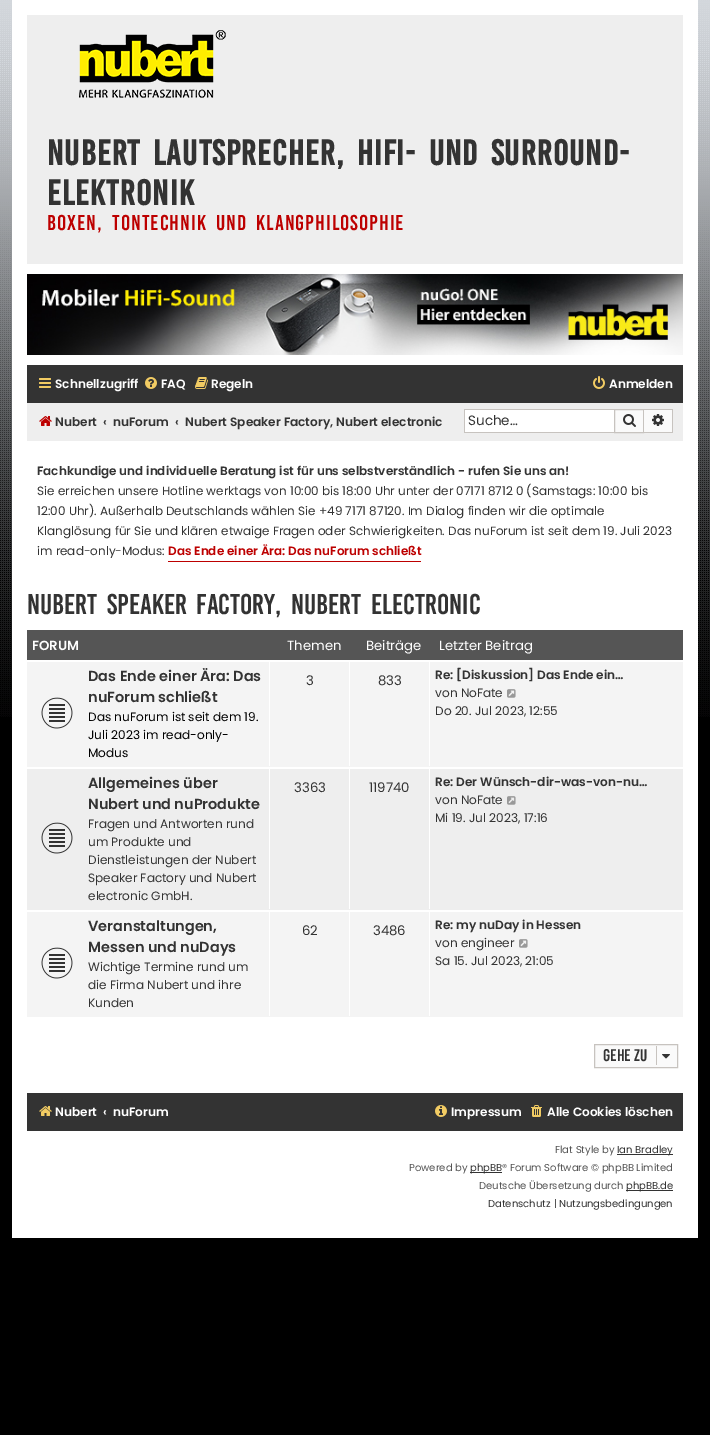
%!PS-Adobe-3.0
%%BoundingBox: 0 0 710 1435
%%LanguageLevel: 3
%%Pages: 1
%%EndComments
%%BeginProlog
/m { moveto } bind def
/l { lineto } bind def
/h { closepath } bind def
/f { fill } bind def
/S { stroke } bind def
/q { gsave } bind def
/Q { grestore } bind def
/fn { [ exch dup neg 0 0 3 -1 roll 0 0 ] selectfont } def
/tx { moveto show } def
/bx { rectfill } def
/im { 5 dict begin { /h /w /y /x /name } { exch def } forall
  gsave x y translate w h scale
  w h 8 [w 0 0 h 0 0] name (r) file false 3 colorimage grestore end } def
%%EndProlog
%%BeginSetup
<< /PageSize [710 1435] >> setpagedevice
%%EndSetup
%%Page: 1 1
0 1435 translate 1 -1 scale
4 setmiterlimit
0 setgray
0 0 710 1435 bx
(image0.raw) 0 0 710 717 im
1 setgray
12 0 686 1238 bx
0.933 setgray
27 15 656 249 bx
(image1.raw) 79 30 147 68 im
/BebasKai-Bold 27.5 fn
0.2 setgray
47 165 m 4 0 32 1 0 (Nubert Lautsprecher, HiFi- und Surround-) awidthshow
47 205 m 1 0 (Elektronik) ashow
/BebasKai-Regular 16.5 fn
0.741 0 0 setrgbcolor
47 230 m 4 0 32 1 0 (Boxen, Tontechnik und Klangphilosophie) awidthshow
(image2.raw) 27 274 656 81 im
0.2 setgray
27 365 656 38 bx
(image3.raw) 39 378 12 10 im
/Poppins-SemiBold 12.1 fn
1 setgray
(Schnellzugriff) 55 388 tx
(image4.raw) 145 377 12 12 im
(FAQ) 161 388 tx
(image5.raw) 195 377 13 12 im
(Regeln) 211 388 tx
(image6.raw) 593 376 12 13 im
(Anmelden) 609 388 tx
0.933 setgray
27 403 656 38 bx
(image7.raw) 39 416 13 10 im
0.2 setgray
(Nubert) 55 426 tx
(‹) 103 426 tx
(nuForum) 113 426 tx
(‹) 175 426 tx
(Nubert Speaker Factory, Nubert electronic) 185 426 tx
1 setgray
465 410 149 22 bx
0.78 0.765 0.749 setrgbcolor
464 409 150 1 bx
464 432 150 1 bx
464 409 1 24 bx
/Poppins-Regular 13.5 fn
0.2 setgray
(Suche…) 468 425 tx
0.98 setgray
614.5 409.5 m 643.5 409.5 l 643.5 432.5 l 614.5 432.5 l h q f Q
0.78 0.765 0.749 setrgbcolor
S
(image8.raw) 623 414 13 13 im
0.98 setgray
644 410 28 22 bx
0.78 0.765 0.749 setrgbcolor
644 409 29 1 bx
672 409 1 24 bx
644 432 29 1 bx
(image9.raw) 652 414 12 12 im
/Poppins-SemiBold 12 fn
0.2 setgray
(Fachkundige und individuelle Beratung ist für uns selbstverständlich - rufen Sie uns an!) 37 475 tx
/Poppins-Regular 12 fn
(Sie erreichen unsere Hotline werktags von 10:00 bis 18:00 Uhr unter der 07171 8712 0 \(Samstags: 10:00 bis) 37 495 tx
(12:00 Uhr\). Außerhalb Deutschlands wählen Sie +49 7171 87120. Im Dialog finden wir die optimale) 37 515 tx
(Klanglösung für Sie und klären etwaige Fragen oder Schwierigkeiten. Das nuForum ist seit dem 19. Juli 2023) 37 535 tx
(im read-only-Modus:) 37 555 tx
0.741 0 0 setrgbcolor
168 561 253 1 bx
/Poppins-SemiBold 12 fn
(Das Ende einer Ära: Das nuForum schließt) 168 555 tx
/BebasKai-Regular 22 fn
0.2 setgray
27 614 m 4 0 32 (Nubert Speaker Factory, Nubert electronic) widthshow
0.333 setgray
27 630 656 30 bx
/Poppins-SemiBold 13.25 fn
1 setgray
(FORUM) 32 650 tx
/Poppins-Regular 13.25 fn
(Themen) 287 650 tx
(Beiträge) 366 650 tx
(Letzter Beitrag) 439 650 tx
0.933 setgray
27 769 656 141 bx
0.957 setgray
27 662 656 105 bx
(image10.raw) 41 697 32 32 im
/Poppins-SemiBold 14.5 fn
0.2 setgray
(Das Ende einer Ära: Das) 88 681 tx
(nuForum schließt) 88 702 tx
/Poppins-Regular 12.1 fn
0 setgray
(Das nuForum ist seit dem 19.) 88 721 tx
(Juli 2023 im read-only-) 88 739 tx
(Modus) 88 757 tx
1 setgray
269 662 1 104 bx
/Poppins-Regular 13.25 fn
0.2 setgray
(3) 306 685 tx
1 setgray
349 662 1 104 bx
0.2 setgray
(833) 378 685 tx
1 setgray
429 662 1 104 bx
/Poppins-SemiBold 12.1 fn
0.2 setgray
(Re: [Diskussion] Das Ende ein…) 435 679 tx
/Poppins-Regular 12.1 fn
(von NoFate) 435 697 tx
(image11.raw) 507 689 9 9 im
(Do 20. Jul 2023, 12:55) 435 715 tx
(image12.raw) 41 822 32 32 im
/Poppins-SemiBold 14.5 fn
(Allgemeines über) 88 788 tx
(Nubert und nuProdukte) 88 809 tx
/Poppins-Regular 12.1 fn
(Fragen und Antworten rund) 88 828 tx
(um Produkte und) 88 846 tx
(Dienstleistungen der Nubert) 88 864 tx
(Speaker Factory und Nubert) 88 882 tx
(electronic GmbH.) 88 900 tx
1 setgray
269 769 1 140 bx
/Poppins-Regular 13.25 fn
0.2 setgray
(3363) 294 792 tx
1 setgray
349 769 1 140 bx
0.2 setgray
(119740) 369 792 tx
1 setgray
429 769 1 140 bx
/Poppins-SemiBold 12.1 fn
0.2 setgray
(Re: Der Wünsch-dir-was-von-nu…) 435 786 tx
/Poppins-Regular 12.1 fn
(von NoFate) 435 804 tx
(image13.raw) 507 796 9 9 im
(Mi 19. Jul 2023, 17:16) 435 822 tx
0.957 setgray
27 912 656 105 bx
(image10.raw) 41 947 32 32 im
/Poppins-SemiBold 14.5 fn
0.2 setgray
(Veranstaltungen,) 88 931 tx
(Messen und nuDays) 88 952 tx
/Poppins-Regular 12.1 fn
(Wichtige Termine rund um) 88 971 tx
(die Firma Nubert und ihre) 88 989 tx
(Kunden) 88 1007 tx
1 setgray
269 912 1 104 bx
/Poppins-Regular 13.25 fn
0.2 setgray
(62) 302 935 tx
1 setgray
349 912 1 104 bx
0.2 setgray
(3486) 373 935 tx
1 setgray
429 912 1 104 bx
/Poppins-SemiBold 12.1 fn
0.2 setgray
(Re: my nuDay in Hessen) 435 929 tx
/Poppins-Regular 12.1 fn
(von engineer) 435 947 tx
(image11.raw) 519 939 9 9 im
(Sa 15. Jul 2023, 21:05) 435 965 tx
0.98 setgray
594.5 1044.5 m 677.5 1044.5 l 677.5 1067.5 l 594.5 1067.5 l h q f Q
0.78 0.765 0.749 setrgbcolor
S
/BebasKai-Regular 13 fn
0.2 setgray
(Gehe zu) 603 1061 tx
0.78 0.765 0.749 setrgbcolor
656 1046 1 19 bx
(image14.raw) 662 1054 8 5 im
0.2 setgray
27 1093 656 38 bx
(image15.raw) 39 1106 13 10 im
/Poppins-SemiBold 12.1 fn
1 setgray
(Nubert) 55 1116 tx
(‹) 103 1116 tx
(nuForum) 113 1116 tx
(image16.raw) 435 1105 12 12 im
(Impressum) 451 1116 tx
(image17.raw) 531 1105 11 12 im
(Alle Cookies löschen) 547 1116 tx
/Poppins-Regular 10 fn
0.333 setgray
(Flat Style by) 555 1153 tx
0.2 setgray
617 1154 56 1 bx
(Ian Bradley) 617 1153 tx
0.333 setgray
(Powered by) 409 1171 tx
0.2 setgray
470 1172 32 1 bx
(phpBB) 470 1171 tx
0.333 setgray
(® Forum Software © phpBB Limited) 502 1171 tx
(Deutsche Übersetzung durch) 479 1189 tx
0.2 setgray
626 1190 47 1 bx
(phpBB.de) 626 1189 tx
(Datenschutz) 488 1207 tx
0.333 setgray
(|) 554 1207 tx
0.2 setgray
(Nutzungsbedingungen) 559 1207 tx
showpage
%%EOF
